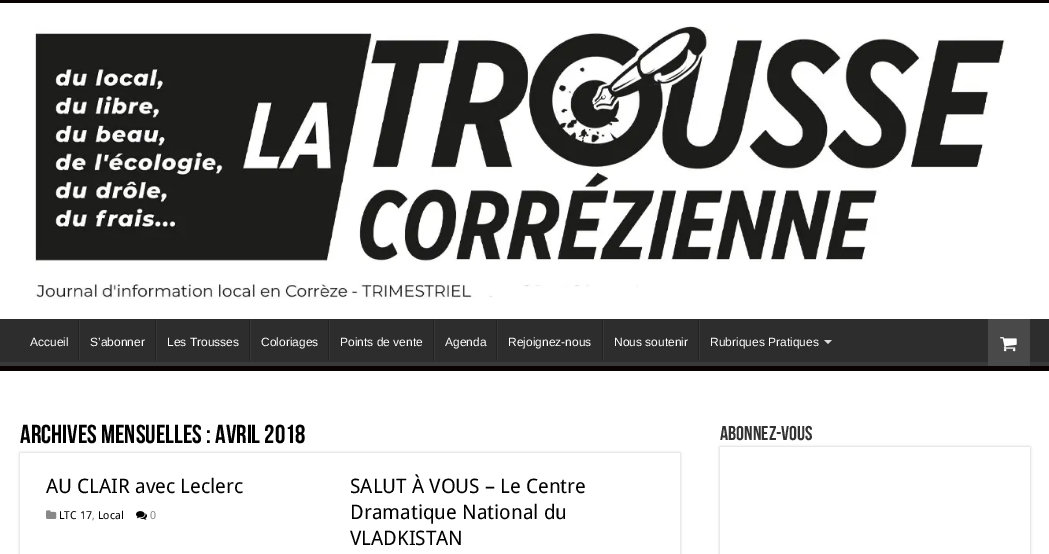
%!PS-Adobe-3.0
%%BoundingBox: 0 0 1049 554
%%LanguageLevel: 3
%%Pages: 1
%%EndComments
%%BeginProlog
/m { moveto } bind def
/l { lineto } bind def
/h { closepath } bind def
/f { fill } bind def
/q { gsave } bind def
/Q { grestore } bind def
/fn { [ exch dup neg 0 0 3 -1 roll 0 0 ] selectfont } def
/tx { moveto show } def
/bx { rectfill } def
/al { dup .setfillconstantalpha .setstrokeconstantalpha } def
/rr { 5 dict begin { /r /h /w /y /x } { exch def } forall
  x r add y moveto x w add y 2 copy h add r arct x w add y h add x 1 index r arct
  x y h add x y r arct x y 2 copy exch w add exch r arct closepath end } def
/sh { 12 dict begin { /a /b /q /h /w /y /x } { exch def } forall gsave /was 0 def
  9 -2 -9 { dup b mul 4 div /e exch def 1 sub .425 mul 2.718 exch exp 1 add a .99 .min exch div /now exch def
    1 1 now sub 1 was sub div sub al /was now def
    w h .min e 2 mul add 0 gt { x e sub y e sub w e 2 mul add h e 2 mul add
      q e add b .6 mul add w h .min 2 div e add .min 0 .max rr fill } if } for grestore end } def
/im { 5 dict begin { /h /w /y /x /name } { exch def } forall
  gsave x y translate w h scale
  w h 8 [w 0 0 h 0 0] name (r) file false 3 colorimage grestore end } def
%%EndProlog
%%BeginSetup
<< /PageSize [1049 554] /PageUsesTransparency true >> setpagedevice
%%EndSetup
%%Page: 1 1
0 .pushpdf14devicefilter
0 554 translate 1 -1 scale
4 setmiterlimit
1 setgray
0 0 1049 554 bx
0.039 0.012 0.012 setrgbcolor
0 0 1049 3 bx
(image0.raw) 35 26 970 273 im
0.176 setgray
0 319 1049 43 bx
q
0 319 1049 47 rectclip
0.224 setgray
-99 220 m 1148 220 l 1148 465 l -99 465 l h -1 313 m 1048 313 l 1049 314 l 1049 362 l -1 362 l -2 361 l -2 313 l h eofill
Q
0.039 0.012 0.012 setrgbcolor
0 366 1049 5 bx
/LiberationSans-Regular 12 fn
1 setgray
(Accueil) 30 346 tx
0.133 setgray
78 319 1 42 bx
0.22 setgray
79 319 1 42 bx
1 setgray
(S’abonner) 90 346 tx
0.133 setgray
155 319 1 42 bx
0.22 setgray
156 319 1 42 bx
1 setgray
(Les Trousses) 167 346 tx
0.133 setgray
249 319 1 42 bx
0.22 setgray
250 319 1 42 bx
1 setgray
(Coloriages) 261 346 tx
0.133 setgray
328 319 1 42 bx
0.22 setgray
329 319 1 42 bx
1 setgray
(Points de vente) 340 346 tx
0.133 setgray
433 319 1 42 bx
0.22 setgray
434 319 1 42 bx
1 setgray
(Agenda) 445 346 tx
0.133 setgray
496 319 1 42 bx
0.22 setgray
497 319 1 42 bx
1 setgray
(Rejoignez-nous) 508 346 tx
0.133 setgray
602 319 1 42 bx
0.22 setgray
603 319 1 42 bx
1 setgray
(Nous soutenir) 614 346 tx
0.133 setgray
698 319 1 42 bx
0.22 setgray
699 319 1 42 bx
1 setgray
(Rubriques Pratiques) 710 346 tx
0.867 setgray
824 340 m 832 340 l 828 344 l h f
0.286 setgray
988 319 42 47 bx
(image1.raw) 1000 337 17 15 im
/BebasNeue-Bold 26 fn
0 setgray
(Archives mensuelles : avril 2018) 20 443 tx
q
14 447 m 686 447 l 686 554 l 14 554 l h 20 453 m 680 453 l 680 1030 l 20 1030 l h eoclip newpath
0.792 setgray
20 453 660 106 0 1.5 1 sh
Q
/DroidSans-Regular 20 fn
(AU CLAIR avec Leclerc) 46 493 tx
(image2.raw) 46 510 11 9 im
/DroidSans-Regular 11 fn
(LTC 17) 59 519 tx
0.533 setgray
(,) 92 519 tx
0 setgray
(Local) 98 519 tx
(image3.raw) 136 511 11 9 im
0.533 setgray
(0) 150 519 tx
/DroidSans-Regular 20 fn
0 setgray
(SALUT À VOUS – Le Centre) 350 493 tx
(Dramatique National du) 350 519 tx
(VLADKISTAN) 350 545 tx
/BebasNeue-Bold 20 fn
0.2 setgray
(Abonnez-vous) 720 440 tx
q
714 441 m 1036 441 l 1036 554 l 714 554 l h 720 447 m 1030 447 l 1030 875 l 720 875 l h eoclip newpath
0.792 setgray
720 447 310 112 0 1.5 1 sh
Q
.poppdf14devicefilter showpage
%%EOF
